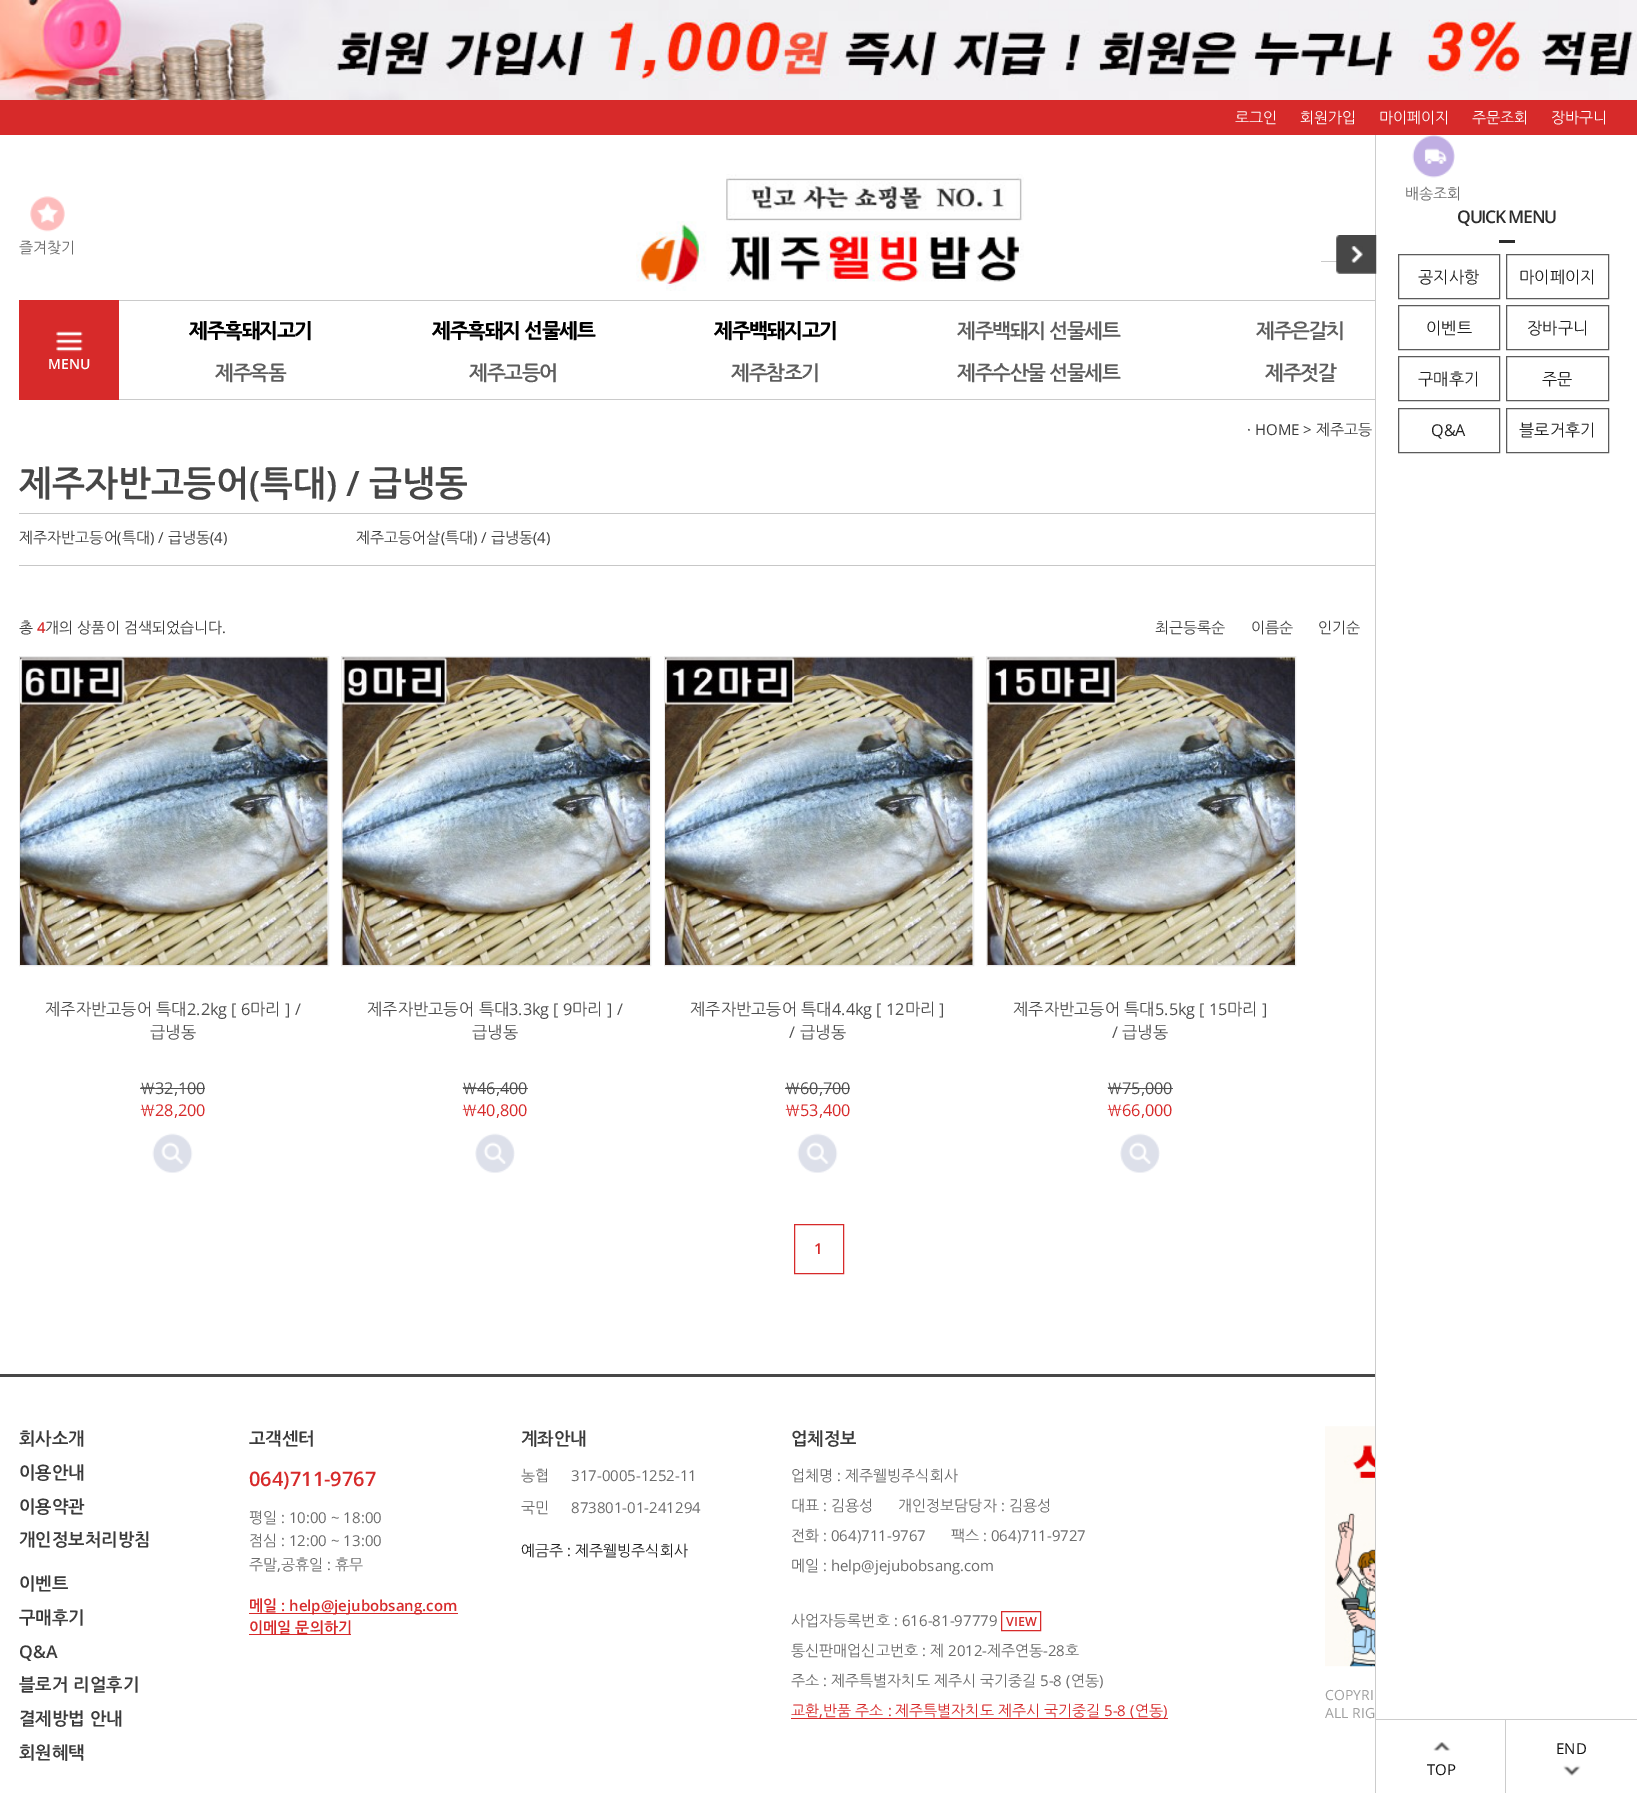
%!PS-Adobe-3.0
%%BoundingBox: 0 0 1637 1793
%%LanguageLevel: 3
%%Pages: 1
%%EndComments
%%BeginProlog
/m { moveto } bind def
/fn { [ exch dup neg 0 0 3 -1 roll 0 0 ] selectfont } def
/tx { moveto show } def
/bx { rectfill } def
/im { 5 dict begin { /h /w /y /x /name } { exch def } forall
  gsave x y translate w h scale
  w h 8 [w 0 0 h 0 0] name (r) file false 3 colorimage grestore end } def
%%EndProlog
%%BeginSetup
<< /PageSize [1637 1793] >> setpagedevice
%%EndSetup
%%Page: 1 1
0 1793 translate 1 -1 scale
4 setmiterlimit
1 setgray
0 0 1637 1793 bx
(image0.raw) 0 0 1637 100 im
0.843 0.165 0.165 setrgbcolor
0 100 1637 35 bx
/NanumGothic-Regular 15 fn
1 setgray
(로그인) 1235 123 tx
(회원가입) 1300 123 tx
(마이페이지) 1379 123 tx
(주문조회) 1472 123 tx
(장바구니) 1551 123 tx
(image1.raw) 30 196 35 36 im
0.42 setgray
(즐겨찾기) 19 253 tx
(image2.raw) 636 174 388 117 im
0.792 setgray
1321 261 16 1 bx
0.843 0.165 0.165 setrgbcolor
19 300 100 100 bx
(image3.raw) 56 331 27 21 im
/OpenSans-SemiBold 14 fn
1 setgray
(MENU) 48 369 tx
0.792 setgray
119 300 1256 1 bx
119 399 1256 1 bx
/NanumGothic-ExtraBold 20 fn
0 setgray
189 338 m -1.25 0 (제주흑돼지고기) ashow
432 338 m -1.25 0 (제주흑돼지 선물세트) ashow
714 338 m -1.25 0 (제주백돼지고기) ashow
/NanumGothic-Bold 20 fn
0.365 setgray
957 338 m -1.25 0 (제주백돼지 선물세트) ashow
1256 338 m -1.25 0 (제주은갈치) ashow
215 380 m -1.25 0 (제주옥돔) ashow
469 380 m -1.25 0 (제주고등어) ashow
731 380 m -1.25 0 (제주참조기) ashow
957 380 m -1.25 0 (제주수산물 선물세트) ashow
1265 380 m -1.25 0 (제주젓갈) ashow
/OpenSans-Regular 15 fn
0.231 setgray
(· HOME >) 1247 435 tx
/NanumGothic-Regular 15 fn
(제주고등) 1316 435 tx
/NanumGothic-Bold 35 fn
0.278 setgray
(제주자반고등어) 19 496 tx
/OpenSans-SemiBold 35 fn
(\() 249 496 tx
/NanumGothic-Bold 35 fn
(특대) 260 496 tx
/OpenSans-SemiBold 35 fn
(\) /) 326 496 tx
/NanumGothic-Bold 35 fn
(급냉동) 369 496 tx
0.78 setgray
19 513 1356 1 bx
19 565 1356 1 bx
/NanumGothic-Regular 15 fn
0.231 setgray
(제주자반고등어 특대) 19 543 tx
(급냉동) 168 543 tx
/OpenSans-Regular 15 fn
(\() 117 543 tx
(\) /) 150 543 tx
(\(4\)) 210 543 tx
/NanumGothic-Regular 15 fn
(제주고등어살 특대) 356 543 tx
(급냉동) 491 543 tx
/OpenSans-Regular 15 fn
(\() 441 543 tx
(\) /) 473 543 tx
(\(4\)) 533 543 tx
/NanumGothic-Regular 15 fn
(총) 19 633 tx
/OpenSans-SemiBold 15 fn
0.843 0.165 0.165 setrgbcolor
(4) 37 633 tx
/NanumGothic-Regular 15 fn
0.231 setgray
(개의 상품이 검색되었습니다) 45 633 tx
/OpenSans-Regular 15 fn
(.) 222 633 tx
/NanumGothic-Regular 15 fn
(최근등록순) 1155 633 tx
(이름순) 1251 633 tx
(인기순) 1318 633 tx
0.925 setgray
19.5 656.5 309 309 rectstroke
(image4.raw) 20 657 308 308 im
/NanumGothic-Regular 16.25 fn
0.306 setgray
(제주자반고등어) 45 1015 tx
(특대) 156 1015 tx
/OpenSans-Regular 16.25 fn
(2.2kg [ 6) 187 1015 tx
/NanumGothic-Regular 16.25 fn
(마리) 250 1015 tx
/OpenSans-Regular 16.25 fn
(] /) 285 1015 tx
/NanumGothic-Regular 16.25 fn
(급냉동) 150 1038 tx
(￦) 140 1094 tx
/OpenSans-Regular 16.25 fn
(32,100) 155 1094 tx
0.325 setgray
140 1088 65 1 bx
/NanumGothic-Regular 16.25 fn
0.843 0.165 0.165 setrgbcolor
(￦) 140 1116 tx
/OpenSans-Regular 16.25 fn
(28,200) 155 1116 tx
(image5.raw) 152 1133 41 40 im
0.925 setgray
341.5 656.5 309 309 rectstroke
(image6.raw) 342 657 308 308 im
/NanumGothic-Regular 16.25 fn
0.306 setgray
(제주자반고등어) 367 1015 tx
(특대) 479 1015 tx
/OpenSans-Regular 16.25 fn
(3.3kg [ 9) 509 1015 tx
/NanumGothic-Regular 16.25 fn
(마리) 572 1015 tx
/OpenSans-Regular 16.25 fn
(] /) 607 1015 tx
/NanumGothic-Regular 16.25 fn
(급냉동) 472 1038 tx
(￦) 462 1094 tx
/OpenSans-Regular 16.25 fn
(46,400) 477 1094 tx
0.325 setgray
463 1088 65 1 bx
/NanumGothic-Regular 16.25 fn
0.843 0.165 0.165 setrgbcolor
(￦) 462 1116 tx
/OpenSans-Regular 16.25 fn
(40,800) 477 1116 tx
(image7.raw) 475 1133 40 40 im
0.925 setgray
664.5 656.5 309 309 rectstroke
(image8.raw) 665 657 308 308 im
/NanumGothic-Regular 16.25 fn
0.306 setgray
(제주자반고등어) 690 1015 tx
(특대) 801 1015 tx
/OpenSans-Regular 16.25 fn
(4.4kg [ 12) 832 1015 tx
/NanumGothic-Regular 16.25 fn
(마리) 905 1015 tx
/OpenSans-Regular 16.25 fn
(]) 939 1015 tx
(/) 789 1038 tx
/NanumGothic-Regular 16.25 fn
(급냉동) 800 1038 tx
(￦) 785 1094 tx
/OpenSans-Regular 16.25 fn
(60,700) 800 1094 tx
0.325 setgray
785 1088 65 1 bx
/NanumGothic-Regular 16.25 fn
0.843 0.165 0.165 setrgbcolor
(￦) 785 1116 tx
/OpenSans-Regular 16.25 fn
(53,400) 800 1116 tx
(image5.raw) 797 1133 41 40 im
0.925 setgray
986.5 656.5 309 309 rectstroke
(image9.raw) 987 657 308 308 im
/NanumGothic-Regular 16.25 fn
0.306 setgray
(제주자반고등어) 1013 1015 tx
(특대) 1124 1015 tx
/OpenSans-Regular 16.25 fn
(5.5kg [ 15) 1155 1015 tx
/NanumGothic-Regular 16.25 fn
(마리) 1227 1015 tx
/OpenSans-Regular 16.25 fn
(]) 1262 1015 tx
(/) 1112 1038 tx
/NanumGothic-Regular 16.25 fn
(급냉동) 1122 1038 tx
(￦) 1107 1094 tx
/OpenSans-Regular 16.25 fn
(75,000) 1122 1094 tx
0.325 setgray
1108 1088 65 1 bx
/NanumGothic-Regular 16.25 fn
0.843 0.165 0.165 setrgbcolor
(￦) 1107 1116 tx
/OpenSans-Regular 16.25 fn
(66,000) 1122 1116 tx
(image7.raw) 1120 1133 40 40 im
794.5 1224.5 49 49 rectstroke
/OpenSans-SemiBold 15 fn
(1) 814 1254 tx
0.278 setgray
0 1374 1375 3 bx
/NanumGothic-Bold 17.5 fn
0.231 setgray
(회사소개) 19 1445 tx
(이용안내) 19 1479 tx
(이용약관) 19 1513 tx
(개인정보처리방침) 19 1546 tx
(이벤트) 19 1590 tx
(구매후기) 19 1624 tx
/OpenSans-SemiBold 17.5 fn
(Q&A) 19 1658 tx
/NanumGothic-Bold 17.5 fn
(블로거 리얼후기) 19 1691 tx
(결제방법 안내) 19 1725 tx
(회원혜택) 19 1759 tx
(고객센터) 249 1445 tx
/OpenSans-SemiBold 20 fn
0.843 0.165 0.165 setrgbcolor
(064\)711-9767) 249 1486 tx
/NanumGothic-Regular 15 fn
0.42 setgray
(평일) 249 1523 tx
/OpenSans-Regular 15 fn
(: 10:00 ~ 18:00) 281 1523 tx
/NanumGothic-Regular 15 fn
(점심) 249 1546 tx
/OpenSans-Regular 15 fn
(: 12:00 ~ 13:00) 281 1546 tx
/NanumGothic-Regular 15 fn
(주말) 249 1570 tx
/OpenSans-Regular 15 fn
(,) 277 1570 tx
/NanumGothic-Regular 15 fn
(공휴일) 281 1570 tx
/OpenSans-Regular 15 fn
(:) 327 1570 tx
/NanumGothic-Regular 15 fn
(휴무) 335 1570 tx
/NanumGothic-Bold 15 fn
0.843 0.165 0.165 setrgbcolor
(메일) 249 1611 tx
249 1613 209 1 bx
/OpenSans-SemiBold 15 fn
(: help@jejubobsang.com) 281 1611 tx
249 1634 102 1 bx
/NanumGothic-Bold 15 fn
(이메일 문의하기) 249 1633 tx
/NanumGothic-Bold 17.5 fn
0.231 setgray
(계좌안내) 521 1445 tx
/NanumGothic-Regular 15 fn
0.42 setgray
(농협) 521 1481 tx
/OpenSans-Regular 15 fn
(317-0005-1252-11) 571 1481 tx
/NanumGothic-Regular 15 fn
(국민) 521 1513 tx
/OpenSans-Regular 15 fn
(873801-01-241294) 571 1513 tx
/NanumGothic-Regular 15 fn
0.125 setgray
(예금주) 521 1556 tx
/OpenSans-Regular 15 fn
(:) 567 1556 tx
/NanumGothic-Regular 15 fn
(제주웰빙주식회사) 575 1556 tx
/NanumGothic-Bold 17.5 fn
0.231 setgray
(업체정보) 791 1445 tx
/NanumGothic-Regular 15 fn
0.42 setgray
(업체명) 791 1481 tx
/OpenSans-Regular 15 fn
(:) 837 1481 tx
/NanumGothic-Regular 15 fn
(제주웰빙주식회사) 845 1481 tx
(대표) 791 1511 tx
/OpenSans-Regular 15 fn
(:) 823 1511 tx
/NanumGothic-Regular 15 fn
(김용성) 831 1511 tx
(개인정보담당자) 898 1511 tx
/OpenSans-Regular 15 fn
(:) 1001 1511 tx
/NanumGothic-Regular 15 fn
(김용성) 1009 1511 tx
(전화) 791 1541 tx
/OpenSans-Regular 15 fn
(: 064\)711-9767) 823 1541 tx
/NanumGothic-Regular 15 fn
(팩스) 951 1541 tx
/OpenSans-Regular 15 fn
(: 064\)711-9727) 983 1541 tx
/NanumGothic-Regular 15 fn
(메일) 791 1571 tx
/OpenSans-Regular 15 fn
(: help@jejubobsang.com) 823 1571 tx
/NanumGothic-Regular 15 fn
(사업자등록번호) 791 1626 tx
/OpenSans-Regular 15 fn
(: 616-81-97779) 894 1626 tx
0.843 0.165 0.165 setrgbcolor
1001.5 1611.5 39 19 rectstroke
/OpenSans-SemiBold 12.5 fn
(VIEW) 1006 1626 tx
/NanumGothic-Regular 15 fn
0.42 setgray
(통신판매업신고번호) 791 1656 tx
/OpenSans-Regular 15 fn
(:) 922 1656 tx
/NanumGothic-Regular 15 fn
(제) 930 1656 tx
/OpenSans-Regular 15 fn
(2012-) 948 1656 tx
/NanumGothic-Regular 15 fn
(제주연동) 987 1656 tx
/OpenSans-Regular 15 fn
(-28) 1043 1656 tx
/NanumGothic-Regular 15 fn
(호) 1065 1656 tx
(주소) 791 1686 tx
/OpenSans-Regular 15 fn
(:) 823 1686 tx
/NanumGothic-Regular 15 fn
(제주특별자치도) 831 1686 tx
(제주시) 934 1686 tx
(국기중길) 980 1686 tx
/OpenSans-Regular 15 fn
(5-8 \() 1040 1686 tx
/NanumGothic-Regular 15 fn
(연동) 1071 1686 tx
/OpenSans-Regular 15 fn
(\)) 1099 1686 tx
/NanumGothic-Regular 15 fn
0.843 0.165 0.165 setrgbcolor
(교환) 791 1716 tx
/OpenSans-Regular 15 fn
(,) 819 1716 tx
791 1718 377 1 bx
/NanumGothic-Regular 15 fn
(반품) 823 1716 tx
(주소) 855 1716 tx
/OpenSans-Regular 15 fn
(:) 888 1716 tx
/NanumGothic-Regular 15 fn
(제주특별자치도) 895 1716 tx
(제주시) 998 1716 tx
(국기중길) 1044 1716 tx
/OpenSans-Regular 15 fn
(5-8 \() 1104 1716 tx
/NanumGothic-Regular 15 fn
(연동) 1135 1716 tx
/OpenSans-Regular 15 fn
(\)) 1163 1716 tx
(image10.raw) 1325 1426 50 241 im
/OpenSans-Regular 14 fn
0.624 setgray
(COPYRI) 1325 1700 tx
(ALL RIG) 1325 1718 tx
0.8 setgray
1375 135 1 1658 bx
(image11.raw) 1336 235 41 39 im
(image12.raw) 1351 246 12 17 im
(image13.raw) 1412 135 43 43 im
/NanumGothic-Regular 15 fn
0.42 setgray
(배송조회) 1405 199 tx
/OpenSans-SemiBold 17.5 fn
0.173 setgray
1457 223 m -1.25 0 (QUICK MENU) ashow
1499 240 16 3 bx
0.357 setgray
1398.5 254.5 101 44 rectstroke
/NanumGothic-Regular 16.25 fn
0.125 setgray
(공지사항) 1418 283 tx
0.357 setgray
1506.5 254.5 102 44 rectstroke
0.125 setgray
(마이페이지) 1519 283 tx
0.357 setgray
1398.5 305.5 101 44 rectstroke
0.125 setgray
(이벤트) 1426 334 tx
0.357 setgray
1506.5 305.5 102 44 rectstroke
0.125 setgray
(장바구니) 1527 334 tx
0.357 setgray
1398.5 356.5 101 44 rectstroke
0.125 setgray
(구매후기) 1418 385 tx
0.357 setgray
1506.5 356.5 102 44 rectstroke
0.125 setgray
(주문) 1542 385 tx
0.357 setgray
1398.5 408.5 101 44 rectstroke
/OpenSans-Regular 16.25 fn
0.125 setgray
(Q&A) 1431 436 tx
0.357 setgray
1506.5 408.5 102 44 rectstroke
/NanumGothic-Regular 16.25 fn
0.125 setgray
(블로거후기) 1519 436 tx
0.8 setgray
1376 1719 261 1 bx
1505 1720 1 73 bx
/OpenSans-Regular 15 fn
0.067 setgray
(END) 1556 1754 tx
(image14.raw) 1563 1765 18 11 im
(image15.raw) 1433 1742 18 9 im
(TOP) 1427 1775 tx
showpage
%%EOF
